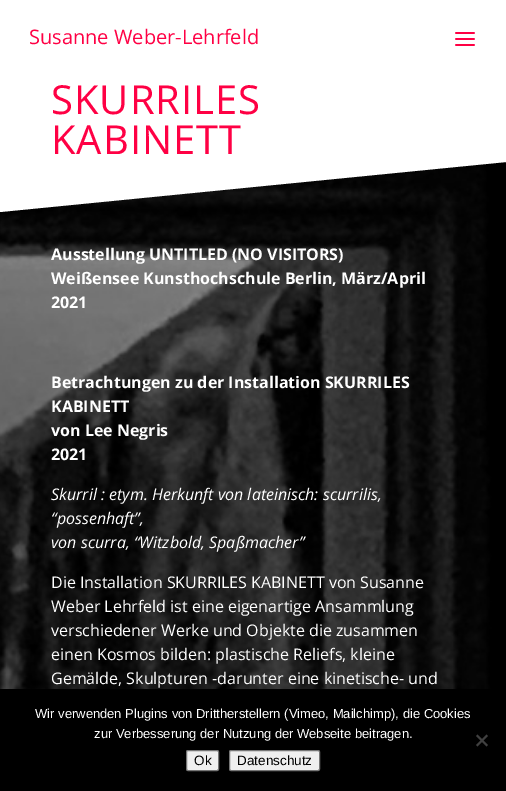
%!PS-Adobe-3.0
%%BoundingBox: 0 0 506 791
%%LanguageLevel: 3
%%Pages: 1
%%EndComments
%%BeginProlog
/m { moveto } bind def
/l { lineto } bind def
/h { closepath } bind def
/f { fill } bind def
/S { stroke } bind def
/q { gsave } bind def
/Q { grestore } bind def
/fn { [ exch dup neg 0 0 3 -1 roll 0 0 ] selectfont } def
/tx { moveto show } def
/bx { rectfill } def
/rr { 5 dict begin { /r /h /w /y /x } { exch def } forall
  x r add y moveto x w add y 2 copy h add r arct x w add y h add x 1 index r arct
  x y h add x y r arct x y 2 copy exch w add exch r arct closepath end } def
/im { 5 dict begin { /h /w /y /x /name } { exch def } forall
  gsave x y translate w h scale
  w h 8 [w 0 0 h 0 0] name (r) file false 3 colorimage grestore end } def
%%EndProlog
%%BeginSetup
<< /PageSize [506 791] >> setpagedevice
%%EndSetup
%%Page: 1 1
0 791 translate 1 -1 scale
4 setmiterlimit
1 setgray
0 0 506 791 bx
/OpenSans-Regular 20 fn
1 0 0.267 setrgbcolor
(Susanne Weber-Lehrfeld) 29 44 tx
(image0.raw) 455 32 20 14 im
/OpenSans-Regular 40 fn
51 114 m 1 0 (SKURRILES) ashow
51 154 m 1 0 (KABINETT) ashow
(image1.raw) 0 162 506 527 im
1 setgray
0 212 m 0 162 l 506 162 l h f
/OpenSans-Bold 16 fn
(Ausstellung UNTITLED \(NO VISITORS\)) 51 260 tx
(Weißensee Kunsthochschule Berlin, März/April) 51 284 tx
(2021) 51 308 tx
(Betrachtungen zu der Installation SKURRILES) 51 388 tx
(KABINETT) 51 412 tx
(von Lee Negris) 51 436 tx
(2021) 51 460 tx
/OpenSans-Italic 16 fn
(Skurril : etym. Herkunft von lateinisch: scurrilis,) 51 500 tx
(“possenhaft”,) 51 524 tx
(von scurra, “Witzbold, Spaßmacher”) 51 548 tx
/OpenSans-Regular 16 fn
(Die Installation SKURRILES KABINETT von Susanne) 51 588 tx
(Weber Lehrfeld ist eine eigenartige Ansammlung) 51 612 tx
(verschiedener Werke und Objekte die zusammen) 51 636 tx
(einen Kosmos bilden: plastische Reliefs, kleine) 51 660 tx
(Gemälde, Skulpturen -darunter eine kinetische- und) 51 684 tx
0 setgray
0 689 506 102 bx
/LiberationSans-Regular 13 fn
1 setgray
(Wir verwenden Plugins von Drittherstellern \(Vimeo, Mailchimp\), die Cookies) 35 718 tx
(zur Verbesserung der Nutzung der Webseite beitragen.) 94 738 tx
0.251 setgray
486.5 734.5 m 488 736 l 477.5 746.5 l 476 745 l h f
476 736 m 477.5 734.5 l 488 745 l 486.5 746.5 l h f
0.937 setgray
186.5 750.5 32 20 1.5 rr q f Q
0.463 setgray
S
/LiberationSans-Regular 13.5 fn
0 setgray
(Ok) 194 765 tx
0.937 setgray
229.5 750.5 90 20 1.5 rr q f Q
0.463 setgray
S
0 setgray
(Datenschutz) 237 765 tx
showpage
%%EOF
